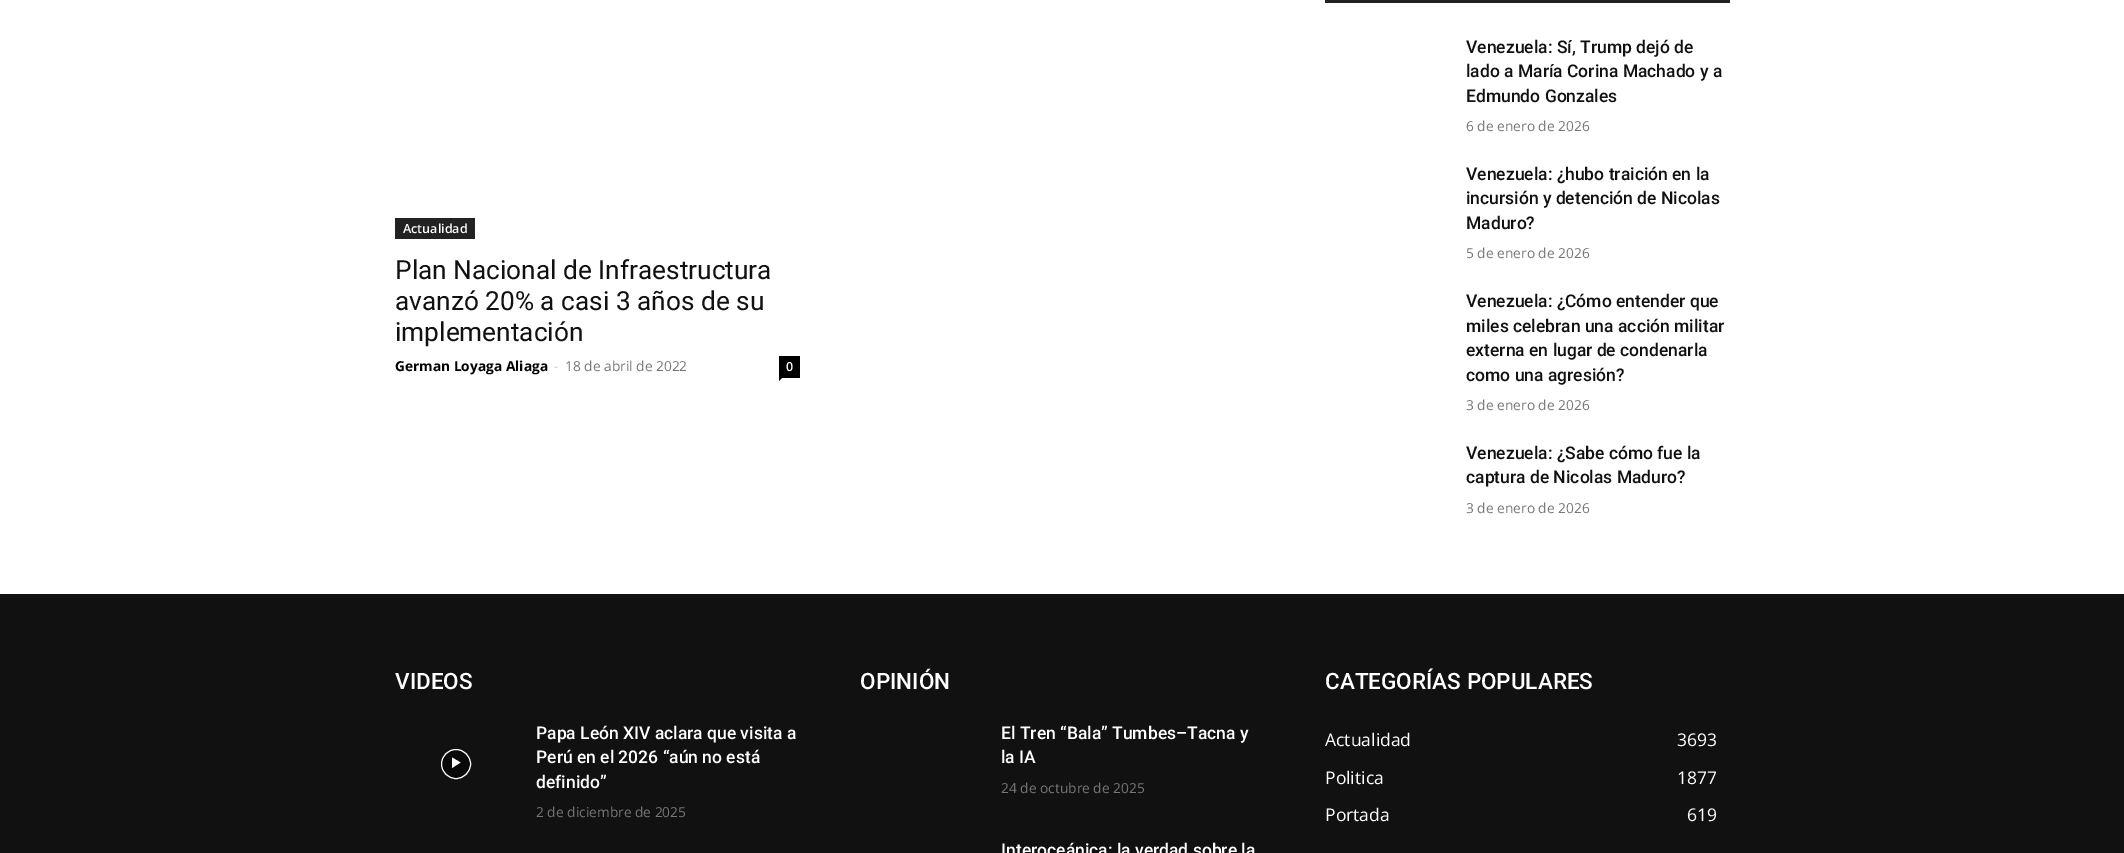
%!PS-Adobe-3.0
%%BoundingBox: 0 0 2124 853
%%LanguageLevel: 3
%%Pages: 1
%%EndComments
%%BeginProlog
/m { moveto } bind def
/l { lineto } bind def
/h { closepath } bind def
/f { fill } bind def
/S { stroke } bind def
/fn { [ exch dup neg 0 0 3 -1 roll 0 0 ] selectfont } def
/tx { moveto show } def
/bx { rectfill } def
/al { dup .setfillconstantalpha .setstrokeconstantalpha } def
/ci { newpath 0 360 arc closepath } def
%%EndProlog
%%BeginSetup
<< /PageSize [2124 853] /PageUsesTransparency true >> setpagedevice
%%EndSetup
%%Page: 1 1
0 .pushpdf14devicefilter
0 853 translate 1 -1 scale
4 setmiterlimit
1 setgray
0 0 2124 853 bx
0.133 setgray
395 218 80 21 bx
/OpenSans-SemiBold 12.5 fn
1 setgray
(Actualidad) 403 233 tx
/Roboto-Regular 26.25 fn
0.067 setgray
(Plan Nacional de Infraestructura) 395 279 tx
(avanzó 20% a casi 3 años de su) 395 310 tx
(implementación) 395 341 tx
/OpenSans-Bold 13.75 fn
0 setgray
(German Loyaga Aliaga) 395 371 tx
/OpenSans-Regular 13.75 fn
0.8 setgray
(-) 554 371 tx
0.463 setgray
(18 de abril de 2022) 565 371 tx
0 setgray
779 356 21 22 bx
/OpenSans-SemiBold 12.5 fn
1 setgray
(0) 786 371 tx
0 setgray
779 377.5 m 782.5 377.5 l 779 381 l h f
0.133 setgray
1325 0 405 3 bx
/Roboto-Medium 17.5 fn
0.067 setgray
(Venezuela: Sí, Trump dejó de) 1466 53 tx
(lado a María Corina Machado y a) 1466 77 tx
(Edmundo Gonzales) 1466 102 tx
/OpenSans-Regular 13.75 fn
0.463 setgray
(6 de enero de 2026) 1466 131 tx
/Roboto-Medium 17.5 fn
0.067 setgray
(Venezuela: ¿hubo traición en la) 1466 180 tx
(incursión y detención de Nicolas) 1466 204 tx
(Maduro?) 1466 229 tx
/OpenSans-Regular 13.75 fn
0.463 setgray
(5 de enero de 2026) 1466 258 tx
/Roboto-Medium 17.5 fn
0.067 setgray
(Venezuela: ¿Cómo entender que) 1466 307 tx
(miles celebran una acción militar) 1466 332 tx
(externa en lugar de condenarla) 1466 356 tx
(como una agresión?) 1466 381 tx
/OpenSans-Regular 13.75 fn
0.463 setgray
(3 de enero de 2026) 1466 410 tx
/Roboto-Medium 17.5 fn
0.067 setgray
(Venezuela: ¿Sabe cómo fue la) 1466 459 tx
(captura de Nicolas Maduro?) 1466 483 tx
/OpenSans-Regular 13.75 fn
0.463 setgray
(3 de enero de 2026) 1466 513 tx
0.067 setgray
0 594 2124 259 bx
/Roboto-Medium 22.5 fn
1 setgray
(VIDEOS) 395 689 tx
0.48 al
0 setgray
456 764 14.5 ci f
1 al
1 setgray
456 764 14.5 ci S
452 757.5 m 452 768 l 460.5 762.5 l h f
/Roboto-Medium 17.5 fn
(Papa León XIV aclara que visita a) 536 739 tx
(Perú en el 2026 “aún no está) 536 763 tx
(definido”) 536 788 tx
/OpenSans-Regular 13.75 fn
0.463 setgray
(2 de diciembre de 2025) 536 817 tx
/Roboto-Medium 22.5 fn
1 setgray
(OPINIÓN) 860 689 tx
/Roboto-Medium 17.5 fn
(El Tren “Bala” Tumbes–Tacna y) 1001 739 tx
(la IA) 1001 763 tx
/OpenSans-Regular 13.75 fn
0.463 setgray
(24 de octubre de 2025) 1001 793 tx
/Roboto-Medium 17.5 fn
1 setgray
(Interoceánica: la verdad sobre la) 1001 856 tx
/Roboto-Medium 22.5 fn
(CATEGORÍAS POPULARES) 1325 689 tx
/OpenSans-Regular 17.5 fn
(Actualidad) 1325 746 tx
(3693) 1677 746 tx
(Politica) 1325 784 tx
(1877) 1677 784 tx
(Portada) 1325 821 tx
(619) 1687 821 tx
.poppdf14devicefilter showpage
%%EOF
